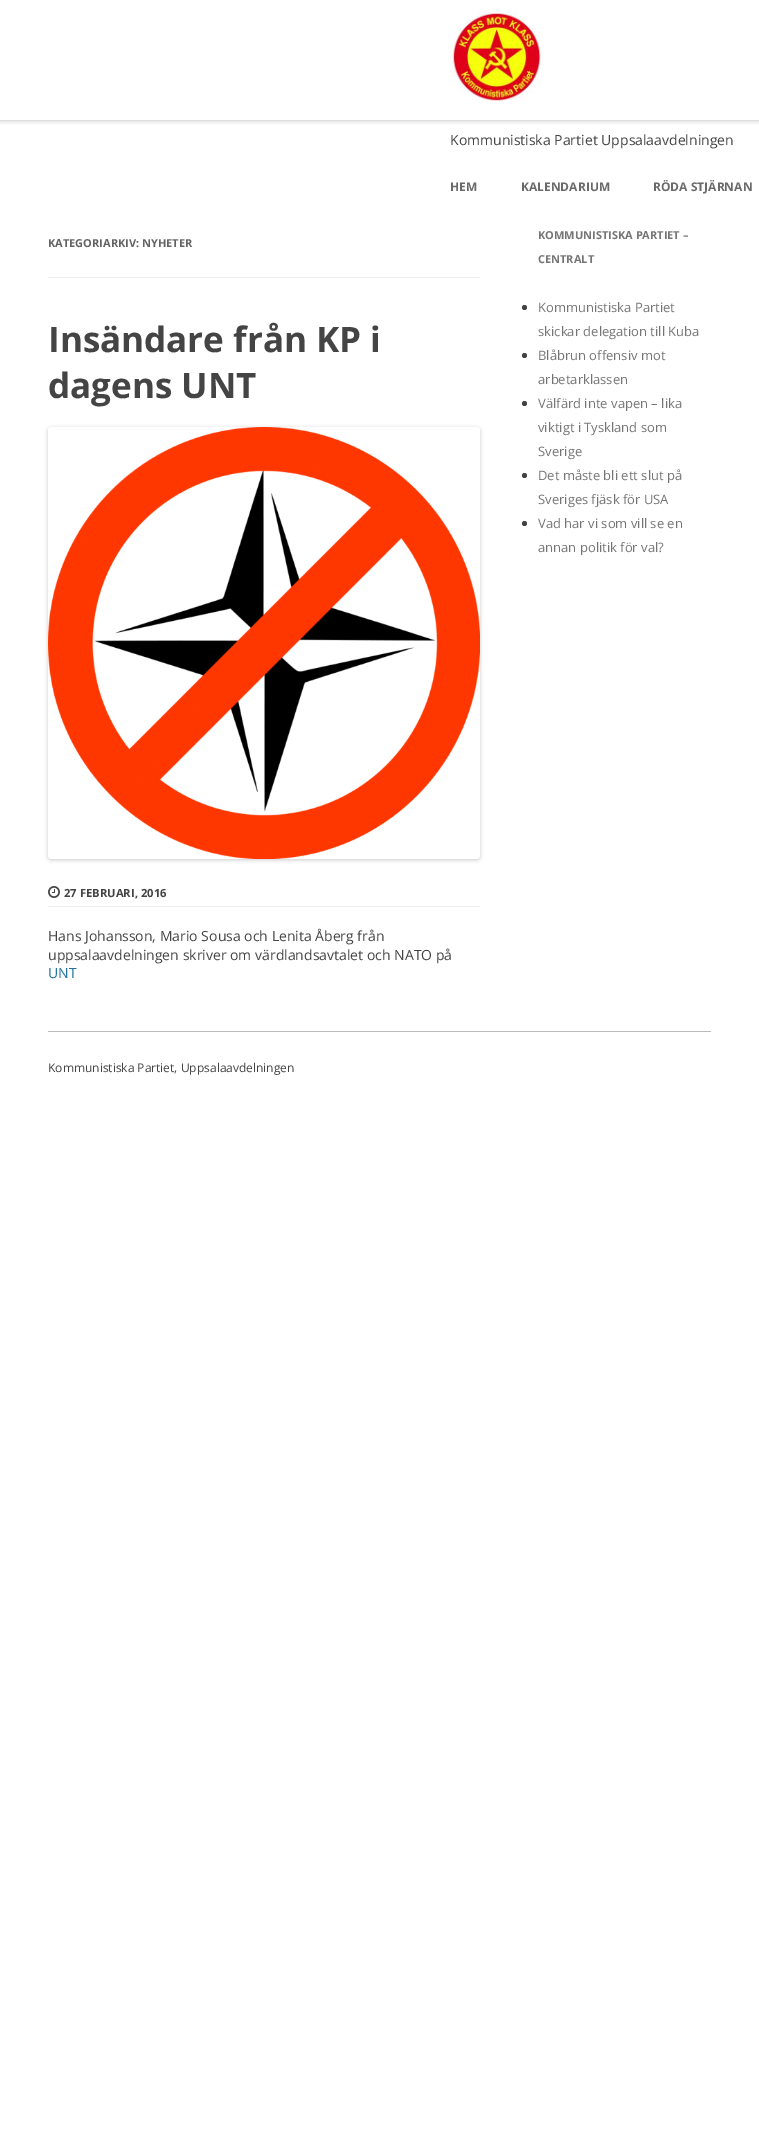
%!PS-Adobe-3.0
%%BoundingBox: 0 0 759 2152
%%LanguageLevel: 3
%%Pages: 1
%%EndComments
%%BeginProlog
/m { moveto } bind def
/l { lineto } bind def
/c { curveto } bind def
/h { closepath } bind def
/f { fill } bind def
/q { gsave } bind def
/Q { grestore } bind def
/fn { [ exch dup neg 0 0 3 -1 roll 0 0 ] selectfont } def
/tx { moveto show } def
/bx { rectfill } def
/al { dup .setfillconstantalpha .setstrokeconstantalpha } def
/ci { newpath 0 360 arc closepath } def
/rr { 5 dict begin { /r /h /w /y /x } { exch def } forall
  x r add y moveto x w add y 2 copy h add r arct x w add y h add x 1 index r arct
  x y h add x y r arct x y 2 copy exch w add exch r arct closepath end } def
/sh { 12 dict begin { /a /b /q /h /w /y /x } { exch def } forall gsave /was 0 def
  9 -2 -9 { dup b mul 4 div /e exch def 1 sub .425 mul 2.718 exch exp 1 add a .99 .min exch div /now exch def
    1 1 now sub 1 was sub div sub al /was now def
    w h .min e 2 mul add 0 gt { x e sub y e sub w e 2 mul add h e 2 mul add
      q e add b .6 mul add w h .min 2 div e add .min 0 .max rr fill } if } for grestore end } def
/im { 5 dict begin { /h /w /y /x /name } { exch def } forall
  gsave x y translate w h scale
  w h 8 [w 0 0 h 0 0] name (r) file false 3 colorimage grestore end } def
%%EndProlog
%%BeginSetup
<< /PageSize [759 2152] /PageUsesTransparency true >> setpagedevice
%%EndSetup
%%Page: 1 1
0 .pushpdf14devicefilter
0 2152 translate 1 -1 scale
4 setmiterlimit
1 setgray
0 0 759 2152 bx
q
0 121 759 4 rectclip
0.392 setgray
0 0 759 121 0 3 0.3 sh
Q
0.867 setgray
0 120 759 1 bx
(image0.raw) 450 10 91 91 im
/OpenSans-Regular 14 fn
0.267 setgray
(Kommunistiska Partiet Uppsalaavdelningen) 450 145 tx
/OpenSans-Bold 12 fn
0.416 setgray
(HEM) 450 191 tx
(KALENDARIUM) 521 191 tx
(RÖDA STJÄRNAN) 653 191 tx
0.929 setgray
48 277 432 1 bx
/OpenSans-Bold 11 fn
0.388 setgray
(KATEGORIARKIV: NYHETER) 48 247 tx
/OpenSans-Bold 35 fn
0.267 setgray
(Insändare från KP i) 48 352 tx
(dagens UNT) 48 398 tx
q
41 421 m 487 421 l 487 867 l 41 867 l h 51 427 m 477 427 l 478.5 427 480 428.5 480 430 c 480 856 l 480 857.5 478.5 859 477 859 c 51 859 l 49.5 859 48 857.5 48 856 c 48 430 l 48 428.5 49.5 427 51 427 c h eoclip newpath
0 setgray
48 428 432 432 3 2 0.2 sh
Q
(image1.raw) 48 427 432 432 im
0.929 setgray
48 906 432 1 bx
(image2.raw) 48 886 12 12 im
/OpenSans-Bold 11.25 fn
0.267 setgray
(27 FEBRUARI, 2016) 64 897 tx
/OpenSans-Regular 14 fn
(Hans Johansson, Mario Sousa och Lenita Åberg från) 48 941 tx
(uppsalaavdelningen skriver om värdlandsavtalet och NATO på) 48 960 tx
0.129 0.459 0.608 setrgbcolor
(UNT) 48 978 tx
/OpenSans-Bold 11 fn
0.459 setgray
(KOMMUNISTISKA PARTIET –) 538 239 tx
(CENTRALT) 538 263 tx
0.267 setgray
524.5 307.5 2.5 ci f
/OpenSans-Regular 13 fn
0.459 setgray
(Kommunistiska Partiet) 538 312 tx
(skickar delegation till Kuba) 538 336 tx
0.267 setgray
524.5 355.5 2.5 ci f
0.459 setgray
(Blåbrun offensiv mot) 538 360 tx
(arbetarklassen) 538 384 tx
0.267 setgray
524.5 403.5 2.5 ci f
0.459 setgray
(Välfärd inte vapen – lika) 538 408 tx
(viktigt i Tyskland som) 538 432 tx
(Sverige) 538 456 tx
0.267 setgray
524.5 475.5 2.5 ci f
0.459 setgray
(Det måste bli ett slut på) 538 480 tx
(Sveriges fjäsk för USA) 538 504 tx
0.267 setgray
524.5 523.5 2.5 ci f
0.459 setgray
(Vad har vi som vill se en) 538 528 tx
(annan politik för val?) 538 552 tx
0.733 setgray
48 1031 663 1 bx
/OpenSans-Regular 12 fn
0.267 setgray
(Kommunistiska Partiet, Uppsalaavdelningen) 48 1072 tx
.poppdf14devicefilter showpage
%%EOF
